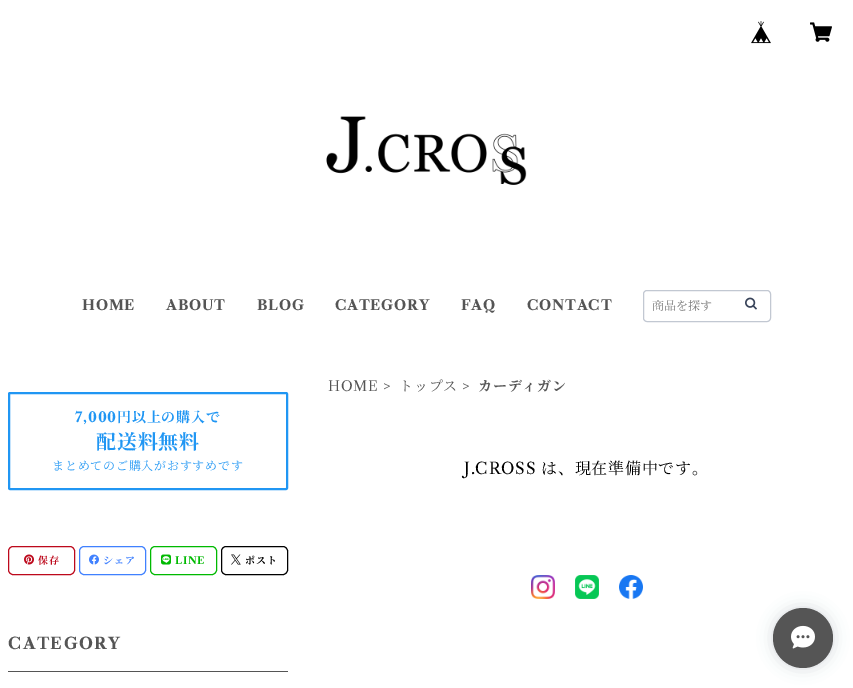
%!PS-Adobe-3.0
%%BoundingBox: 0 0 853 688
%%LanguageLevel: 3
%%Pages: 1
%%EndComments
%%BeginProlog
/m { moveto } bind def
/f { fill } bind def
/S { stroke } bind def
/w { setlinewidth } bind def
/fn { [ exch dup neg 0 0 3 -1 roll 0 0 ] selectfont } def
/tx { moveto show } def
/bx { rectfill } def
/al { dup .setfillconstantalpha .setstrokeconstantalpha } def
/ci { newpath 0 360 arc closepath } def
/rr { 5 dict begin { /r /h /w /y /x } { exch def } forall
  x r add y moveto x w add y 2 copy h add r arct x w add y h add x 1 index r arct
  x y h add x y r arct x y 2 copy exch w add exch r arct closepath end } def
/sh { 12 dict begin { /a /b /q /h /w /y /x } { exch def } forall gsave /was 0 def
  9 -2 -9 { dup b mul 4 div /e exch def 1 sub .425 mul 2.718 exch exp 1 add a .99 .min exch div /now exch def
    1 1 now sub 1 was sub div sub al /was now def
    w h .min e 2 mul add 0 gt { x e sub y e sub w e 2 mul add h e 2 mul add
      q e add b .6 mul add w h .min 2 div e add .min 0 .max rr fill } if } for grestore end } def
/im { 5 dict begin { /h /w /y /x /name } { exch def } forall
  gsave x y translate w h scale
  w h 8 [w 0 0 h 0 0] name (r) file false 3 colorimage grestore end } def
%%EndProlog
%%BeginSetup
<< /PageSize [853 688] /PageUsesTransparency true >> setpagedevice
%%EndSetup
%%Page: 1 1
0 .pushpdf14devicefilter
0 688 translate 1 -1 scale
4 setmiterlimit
1 setgray
0 0 853 688 bx
(image0.raw) 751 21 20 23 im
(image1.raw) 810 22 22 20 im
(image2.raw) 326 116 201 69 im
/LibreCaslonText-Bold 14 fn
0.333 setgray
82 310 m 0.75 0 (HOME) ashow
166 310 m 0.75 0 (ABOUT) ashow
257 310 m 0.75 0 (BLOG) ashow
335 310 m 0.75 0 (CATEGORY) ashow
461 310 m 0.75 0 (FAQ) ashow
527 310 m 0.75 0 (CONTACT) ashow
0.761 0.784 0.824 setrgbcolor
643.5 290.5 127 31 3.5 rr S
/NotoSerifJP-Regular 12 fn
0.459 setgray
(商品を探す) 652 310 tx
(image3.raw) 745 297 12 13 im
0.125 0.588 0.953 setrgbcolor
2 w
9 393 278 96 1 rr S
/LibreCaslonText-Bold 14 fn
75 422 m 0.75 0 (7,000) ashow
/NotoSerifJP-Bold 14 fn
117 422 m 0.75 0 (円以上の購入で) ashow
/NotoSerifJP-Bold 20 fn
96 449 m 0.75 0 (配送料無料) ashow
/NotoSerifJP-Regular 12 fn
52 470 m 0.75 0 (まとめてのご購入がおすすめです) ashow
0.741 0.035 0.11 setrgbcolor
1 w
8.5 546.5 66 28 4.5 rr S
(image4.raw) 24 554 10 11 im
/NotoSerifJP-Bold 10 fn
38 564 m 0.75 0 (保存) ashow
0.251 0.506 1 setrgbcolor
79.5 546.5 66 28 4.5 rr S
(image5.raw) 89 554 10 11 im
103 564 m 0.75 0 (シェア) ashow
0 0.725 0.004 setrgbcolor
150.5 546.5 66 28 4.5 rr S
(image6.raw) 161 554 10 11 im
/LibreCaslonText-Bold 10 fn
175 564 m 0.75 0 (LINE) ashow
0 setgray
221.5 546.5 66 28 4.5 rr S
(image7.raw) 231 554 10 11 im
/NotoSerifJP-Bold 10 fn
245 564 m 0.75 0 (ポスト) ashow
/LibreCaslonText-Bold 16 fn
0.333 setgray
8 649 m 1.5 0 (CATEGORY) ashow
8 671 280 1 bx
/LibreCaslonText-Regular 14 fn
328 391 m 0.75 0 (HOME) ashow
383 391 m 0.75 0 (>) ashow
/NotoSerifJP-Regular 14 fn
399 391 m 0.75 0 (トップス) ashow
/LibreCaslonText-Regular 14 fn
462 391 m 0.75 0 (>) ashow
/NotoSerifJP-Bold 14 fn
478 391 m 0.75 0 (カーディガン) ashow
/LibreCaslonText-Regular 16 fn
0 setgray
464 474 m 0.75 0 (J.CROSS) ashow
/NotoSerifJP-Regular 16 fn
541 474 m 0.75 0 (は、現在準備中です。) ashow
(image8.raw) 531 575 24 24 im
(image9.raw) 575 575 24 24 im
(image10.raw) 619 575 24 24 im
0.2 0.259 0.345 setrgbcolor
773 608 60 60 30 7.5 0.2 sh
0.333 setgray
803 638 30 ci f
(image11.raw) 791 625 24 24 im
.poppdf14devicefilter showpage
%%EOF
